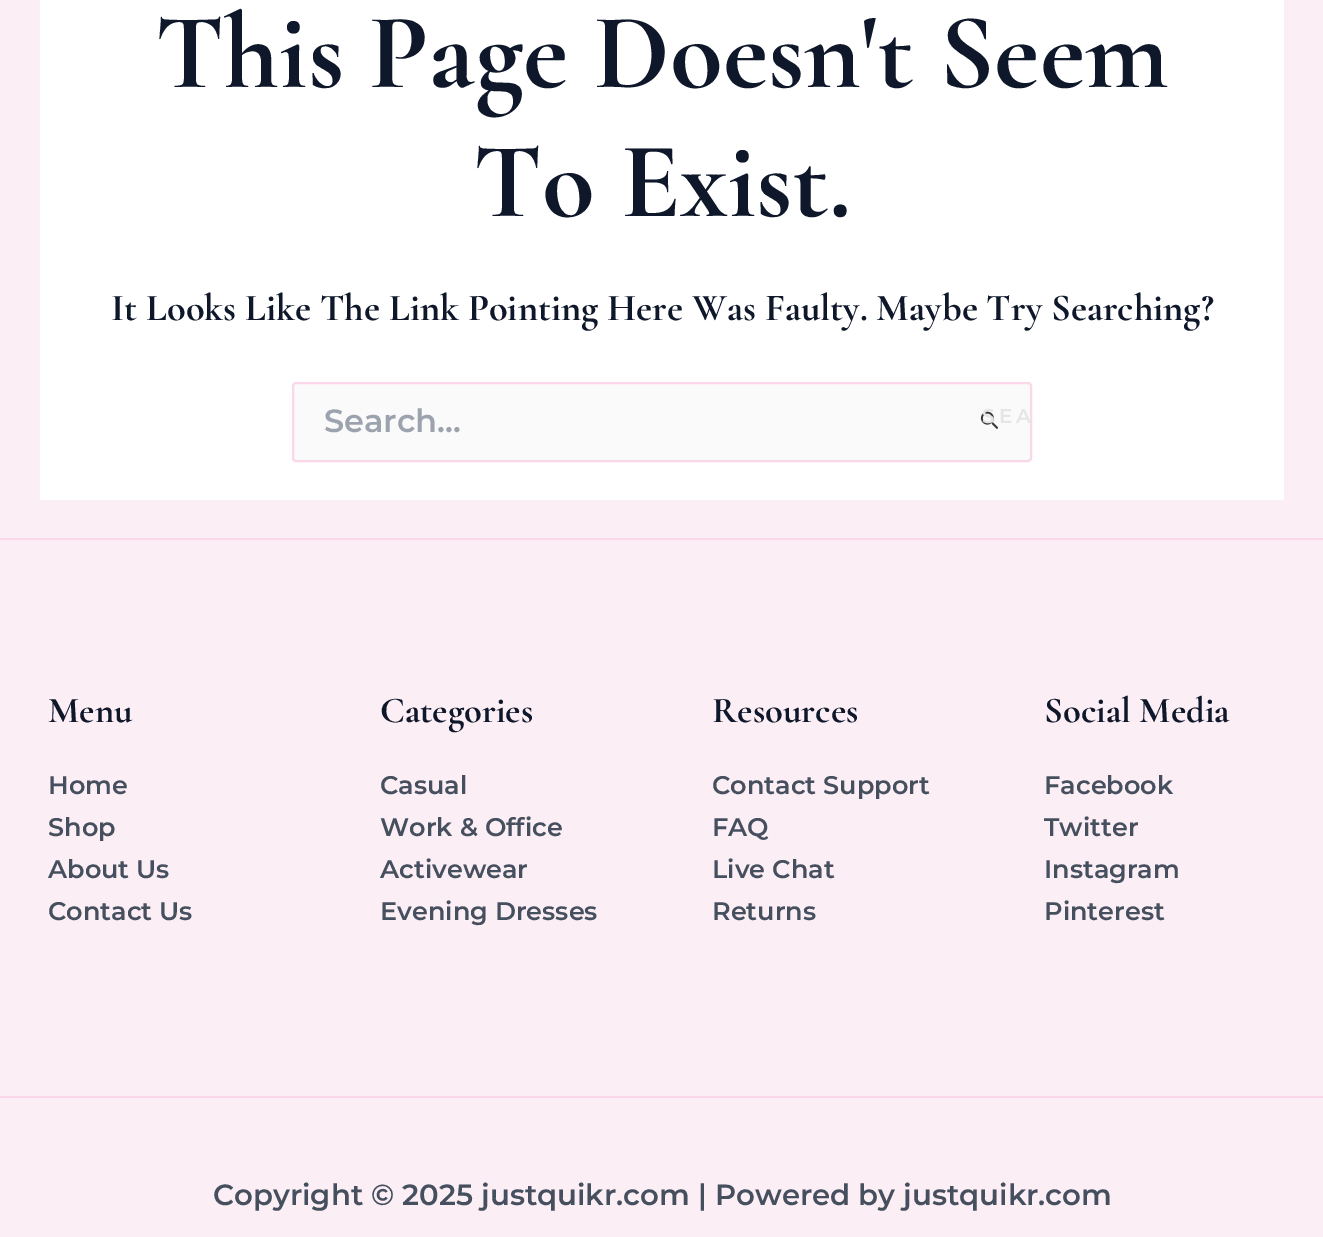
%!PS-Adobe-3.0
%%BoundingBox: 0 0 1323 1237
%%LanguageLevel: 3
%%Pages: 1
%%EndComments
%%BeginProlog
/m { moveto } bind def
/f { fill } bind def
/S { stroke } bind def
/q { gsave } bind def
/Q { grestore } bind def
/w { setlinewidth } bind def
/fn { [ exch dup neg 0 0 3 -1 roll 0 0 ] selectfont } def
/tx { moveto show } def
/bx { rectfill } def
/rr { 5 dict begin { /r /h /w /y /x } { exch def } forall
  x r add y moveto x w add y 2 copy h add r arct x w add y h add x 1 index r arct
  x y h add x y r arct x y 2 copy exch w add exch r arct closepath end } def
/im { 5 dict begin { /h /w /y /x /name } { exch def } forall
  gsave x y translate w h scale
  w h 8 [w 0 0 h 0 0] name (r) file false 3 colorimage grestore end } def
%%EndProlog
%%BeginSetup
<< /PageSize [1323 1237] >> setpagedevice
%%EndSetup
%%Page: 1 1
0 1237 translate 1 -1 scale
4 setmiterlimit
0.988 0.933 0.961 setrgbcolor
0 0 1323 1237 bx
1 setgray
40 0 1244 500 bx
/CormorantGaramond-Light 108 fn
0.059 0.09 0.165 setrgbcolor
(This Page Doesn't Seem) 155 87 tx
(To Exist.) 473 216 tx
/CormorantGaramond-Light 38.3 fn
(It Looks Like The Link Pointing Here Was Faulty. Maybe Try Searching?) 111 320 tx
0.98 setgray
293 383 738 78 3 rr q f Q
0.98 0.847 0.914 setrgbcolor
2 w
S
/Montserrat-Thin 32 fn
0.612 0.639 0.686 setrgbcolor
(Search...) 324 432 tx
(image0.raw) 980 411 18 19 im
/Montserrat-Thin 20 fn
0.902 0.898 0.898 setrgbcolor
982 423 m 4 0 (SEA) ashow
0.98 0.847 0.914 setrgbcolor
0 538 1323 2 bx
/CormorantGaramond-Light 36.5 fn
0.059 0.09 0.165 setrgbcolor
(Menu) 48 722 tx
/Montserrat-Thin 25.5 fn
0.271 0.31 0.369 setrgbcolor
(Home) 48 794 tx
(Shop) 48 836 tx
(About Us) 48 878 tx
(Contact Us) 48 920 tx
/CormorantGaramond-Light 36.5 fn
0.059 0.09 0.165 setrgbcolor
(Categories) 380 722 tx
/Montserrat-Thin 25.5 fn
0.271 0.31 0.369 setrgbcolor
(Casual) 380 794 tx
(Work & Office) 380 836 tx
(Activewear) 380 878 tx
(Evening Dresses) 380 920 tx
/CormorantGaramond-Light 36.5 fn
0.059 0.09 0.165 setrgbcolor
(Resources) 712 722 tx
/Montserrat-Thin 25.5 fn
0.271 0.31 0.369 setrgbcolor
(Contact Support) 712 794 tx
(FAQ) 712 836 tx
(Live Chat) 712 878 tx
(Returns) 712 920 tx
/CormorantGaramond-Light 36.5 fn
0.059 0.09 0.165 setrgbcolor
(Social Media) 1044 722 tx
/Montserrat-Thin 25.5 fn
0.271 0.31 0.369 setrgbcolor
(Facebook) 1044 794 tx
(Twitter) 1044 836 tx
(Instagram) 1044 878 tx
(Pinterest) 1044 920 tx
0.98 0.847 0.914 setrgbcolor
0 1096 1323 2 bx
/Montserrat-Thin 29.2 fn
0.271 0.31 0.369 setrgbcolor
(Copyright © 2025 justquikr.com | Powered by justquikr.com) 213 1205 tx
showpage
%%EOF
